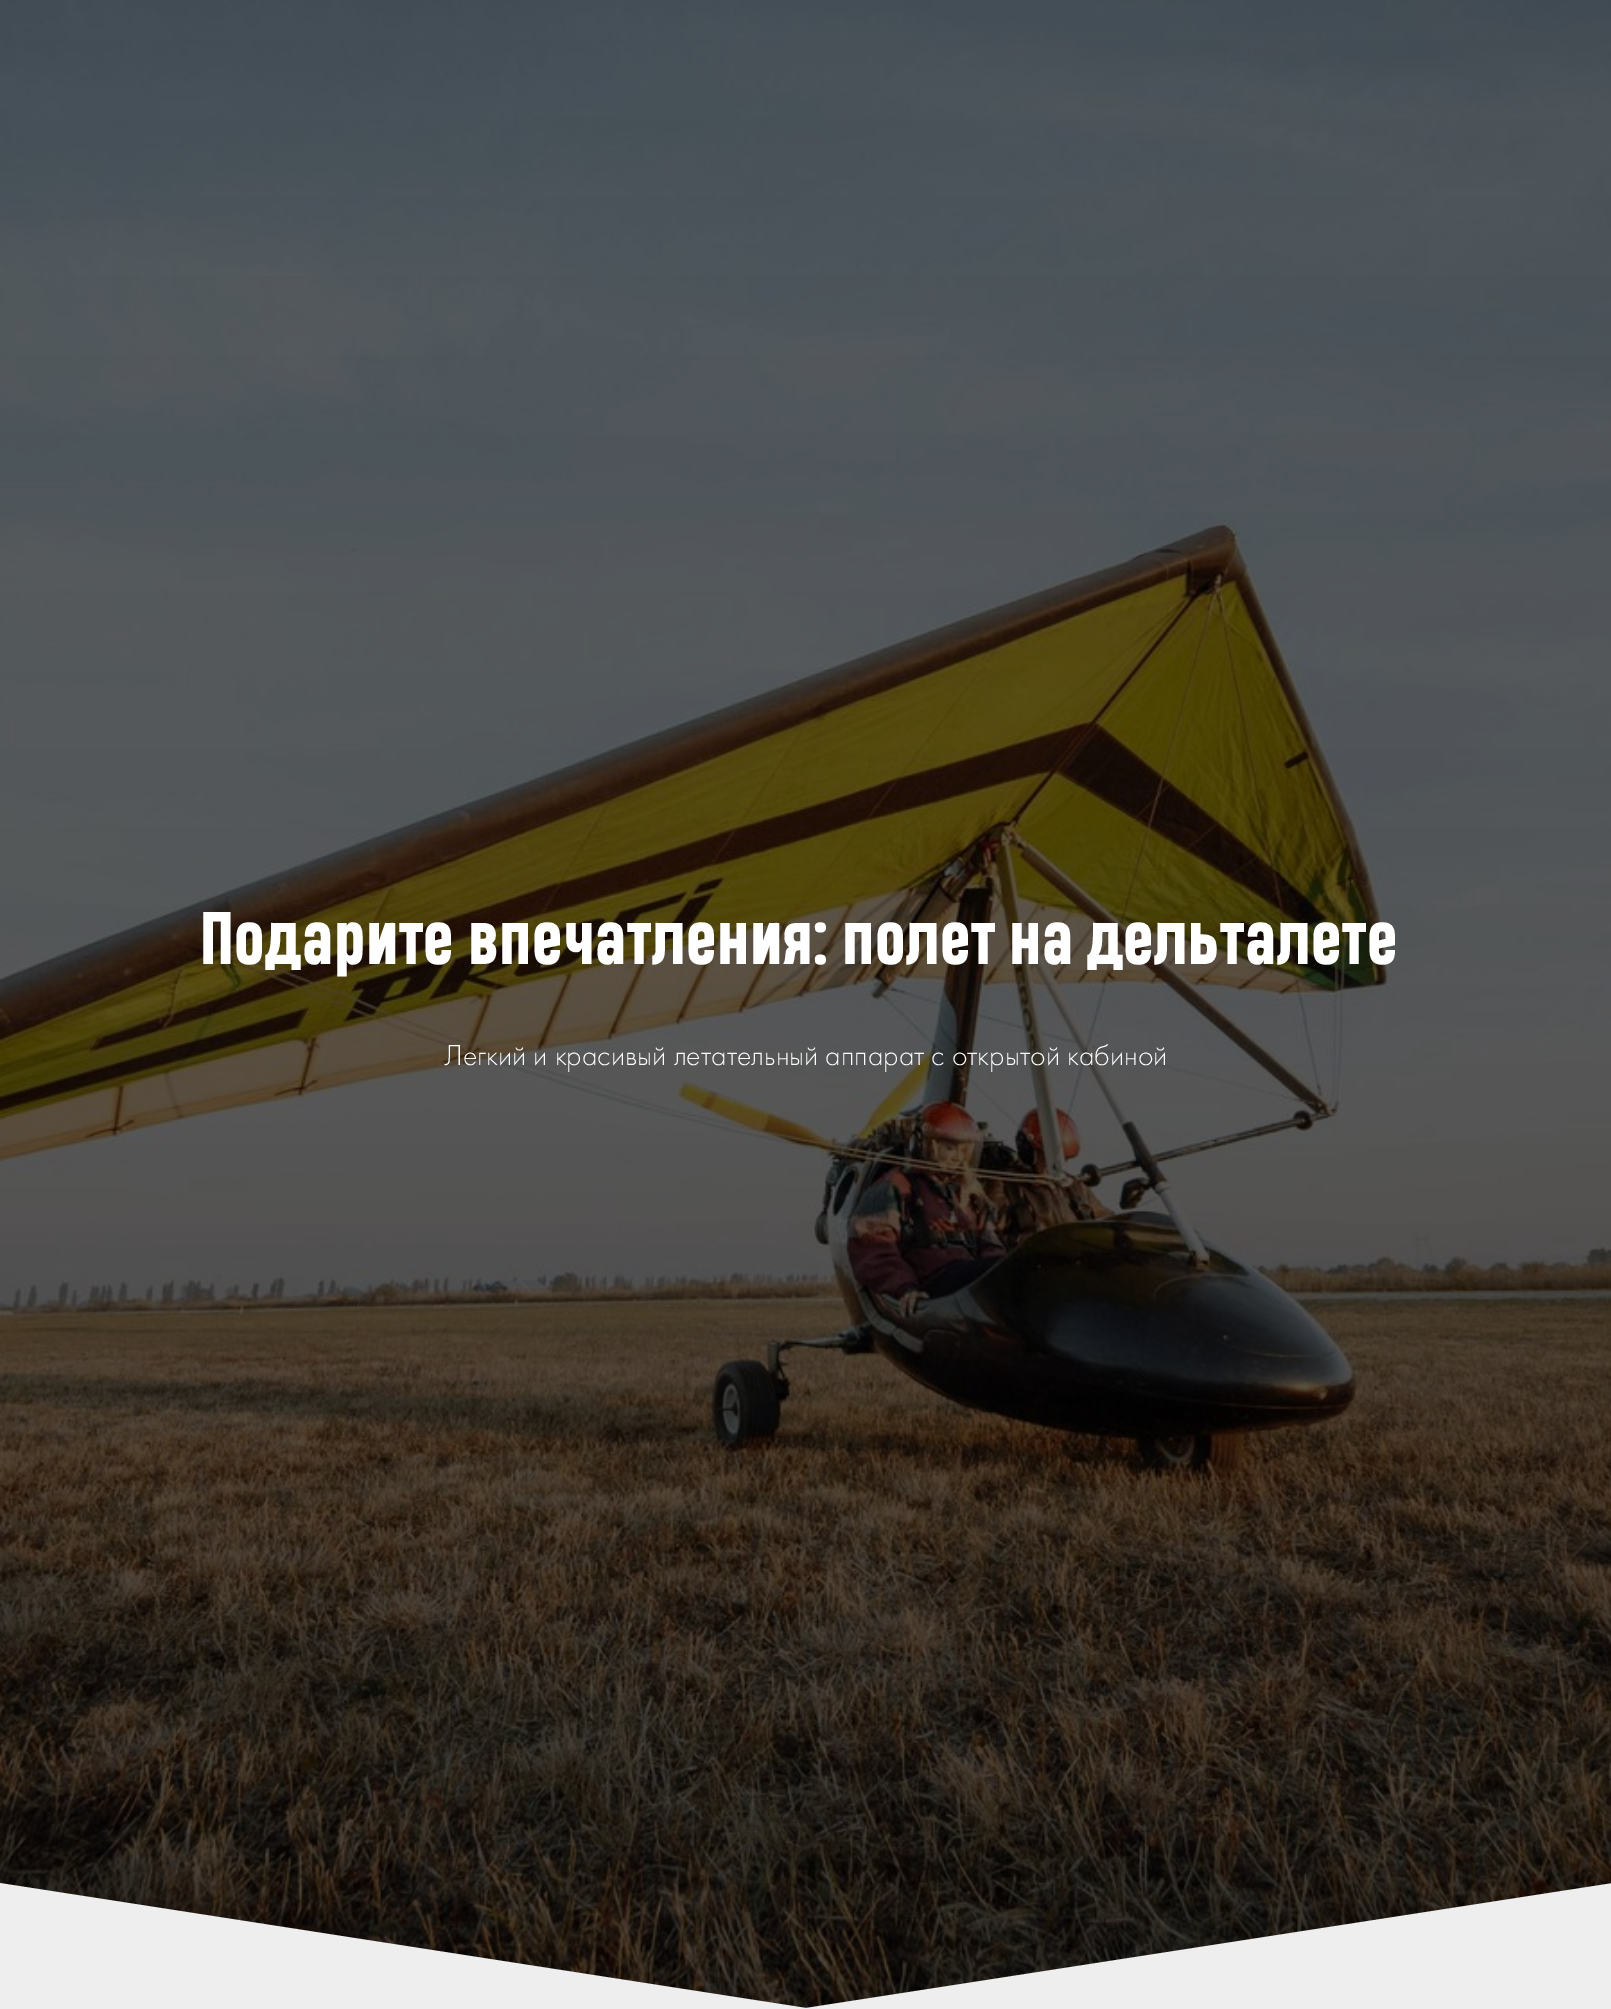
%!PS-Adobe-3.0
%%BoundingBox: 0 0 1611 2009
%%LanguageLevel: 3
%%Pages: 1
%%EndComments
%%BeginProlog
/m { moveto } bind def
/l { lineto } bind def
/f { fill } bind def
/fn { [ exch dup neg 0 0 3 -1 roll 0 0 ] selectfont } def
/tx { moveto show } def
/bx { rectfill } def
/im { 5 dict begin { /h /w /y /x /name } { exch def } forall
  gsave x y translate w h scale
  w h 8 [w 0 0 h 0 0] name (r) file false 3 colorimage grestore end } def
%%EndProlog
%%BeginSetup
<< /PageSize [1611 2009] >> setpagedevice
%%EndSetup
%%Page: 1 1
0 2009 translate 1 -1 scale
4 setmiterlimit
1 setgray
0 0 1611 2009 bx
(image0.raw) 0 0 1611 2008 im
/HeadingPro-ExtraBold 70 fn
200 964 m 0.6 0 (Подарите впечатления: полет на дельталете) ashow
/FuturaPT-Light 30 fn
(Легкий и красивый летательный аппарат с открытой кабиной) 444 1065 tx
0.933 setgray
806 2008 m -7 1882 l -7 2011 l 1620 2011 l 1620 1882 l f
showpage
%%EOF
